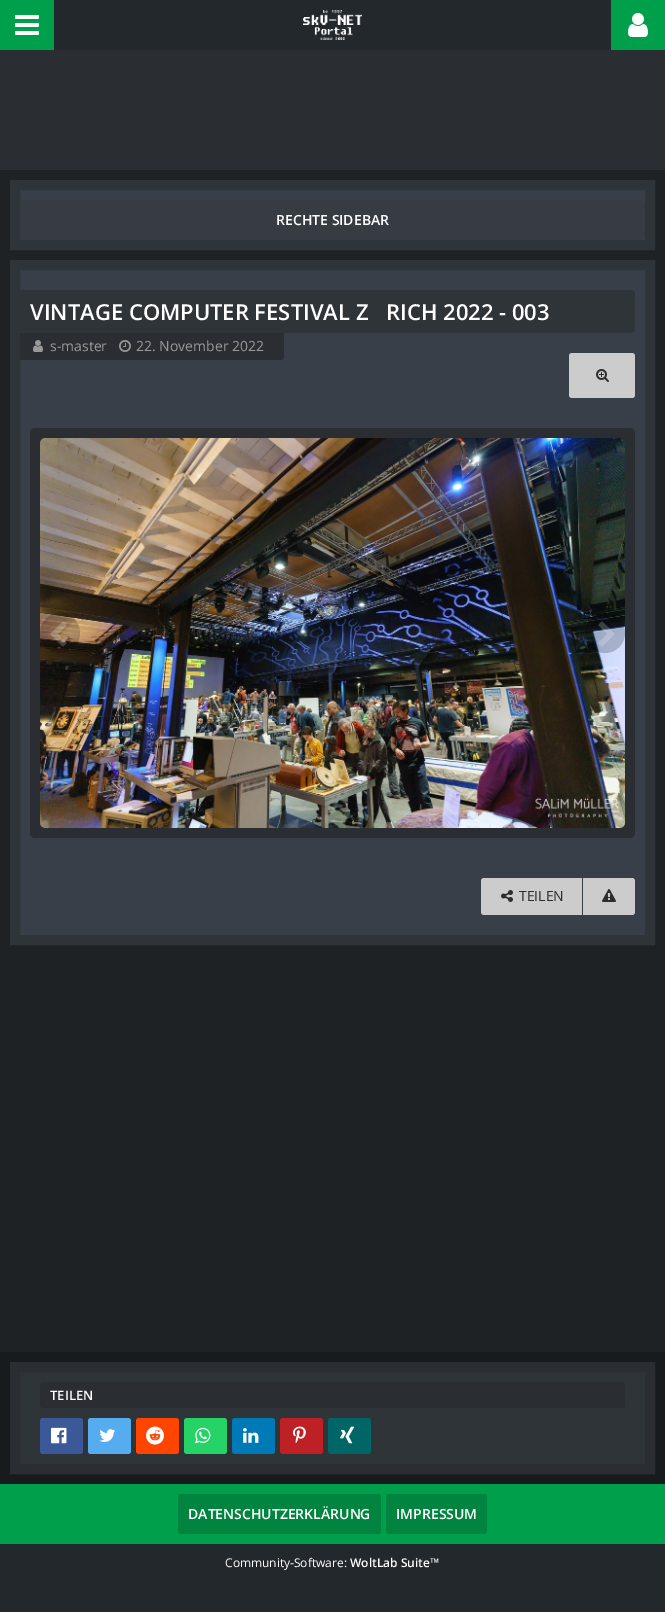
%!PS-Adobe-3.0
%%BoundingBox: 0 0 665 1612
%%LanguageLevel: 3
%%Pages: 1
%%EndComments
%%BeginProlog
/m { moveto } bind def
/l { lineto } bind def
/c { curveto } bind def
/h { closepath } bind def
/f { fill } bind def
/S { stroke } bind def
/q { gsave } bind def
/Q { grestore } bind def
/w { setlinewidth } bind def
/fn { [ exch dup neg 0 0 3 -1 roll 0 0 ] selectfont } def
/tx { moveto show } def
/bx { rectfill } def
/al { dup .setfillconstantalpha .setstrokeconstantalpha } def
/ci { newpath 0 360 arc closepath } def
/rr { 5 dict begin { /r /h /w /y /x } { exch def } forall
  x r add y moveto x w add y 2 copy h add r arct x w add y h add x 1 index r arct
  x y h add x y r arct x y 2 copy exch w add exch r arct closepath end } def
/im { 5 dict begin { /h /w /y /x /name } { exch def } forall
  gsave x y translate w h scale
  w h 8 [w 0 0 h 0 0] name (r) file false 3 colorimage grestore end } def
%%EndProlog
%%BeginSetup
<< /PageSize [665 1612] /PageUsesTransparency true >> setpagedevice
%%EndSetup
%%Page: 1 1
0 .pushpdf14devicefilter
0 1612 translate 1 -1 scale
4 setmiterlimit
0.122 0.133 0.145 setrgbcolor
0 0 665 1612 bx
0.165 0.18 0.196 setrgbcolor
0 50 665 120 bx
0.137 0.157 0.176 setrgbcolor
54 0 557 50 bx
(image0.raw) 303 10 59 30 im
0 0.624 0.294 setrgbcolor
611 0 54 50 bx
(image1.raw) 628 13 20 24 im
0 0 54 50 bx
(image2.raw) 15 15 24 20 im
0.22 0.247 0.282 setrgbcolor
15 185 m 650 185 l 650 245 l 15 245 l h q f Q
0.184 0.204 0.224 setrgbcolor
10 w
S
0.212 0.235 0.259 setrgbcolor
20 200 625 40 5 rr f
/OpenSans-SemiBold 14 fn
1 setgray
(RECHTE SIDEBAR) 276 225 tx
0.22 0.247 0.282 setrgbcolor
15 265 m 650 265 l 650 940 l 15 940 l h q f Q
0.184 0.204 0.224 setrgbcolor
S
10 290 m 630 290 l 633 290 635 292 635 295 c 635 328 l 635 331 633 333 630 333 c 10 333 l h f
/OpenSans-SemiBold 22 fn
1 setgray
(VINTAGE COMPUTER FESTIVAL Z) 30 320 tx
(RICH 2022 - 003) 386 320 tx
0.165 0.18 0.196 setrgbcolor
20 333 m 284 333 l 284 357 l 284 358.5 282.5 360 281 360 c 20 360 l h f
(image3.raw) 33 340 10 12 im
/OpenSans-Regular 14 fn
0.6 setgray
(s-master) 50 351 tx
(image4.raw) 119 340 12 12 im
(22. November 2022) 136 351 tx
0.8 setgray
569 353 66 45 3 rr f
(image5.raw) 596 369 13 13 im
0.165 0.18 0.196 setrgbcolor
30 428 605 410 5 rr f
(image6.raw) 40 438 585 390 im
0.2 al
0 setgray
60 633 20 ci f
1 al
(image7.raw) 50 621 17 26 im
0.2 al
605 633 20 ci f
1 al
(image8.raw) 598 621 17 26 im
0.8 setgray
484 878 m 582 878 l 582 915 l 484 915 l 482.5 915 481 913.5 481 912 c 481 881 l 481 879.5 482.5 878 484 878 c h f
(image9.raw) 501 890 12 12 im
0.176 setgray
(TEILEN) 519 901 tx
0.8 setgray
583 878 m 632 878 l 633.5 878 635 879.5 635 881 c 635 912 l 635 913.5 633.5 915 632 915 c 583 915 l h f
(image10.raw) 602 889 14 13 im
0.094 0.106 0.118 setrgbcolor
0 1352 665 132 bx
0.184 0.204 0.224 setrgbcolor
15 1367 m 650 1367 l 650 1469 l 15 1469 l h q f Q
0.165 0.18 0.196 setrgbcolor
S
40 1382 585 26 3 rr f
/OpenSans-SemiBold 13 fn
1 setgray
(TEILEN) 50 1400 tx
0.231 0.349 0.6 setrgbcolor
40 1418 43 36 3 rr f
(image11.raw) 51 1427 16 17 im
0.333 0.675 0.933 setrgbcolor
88 1418 43 36 3 rr f
(image12.raw) 99 1429 17 13 im
1 0.271 0 setrgbcolor
136 1418 43 36 3 rr f
(image13.raw) 146 1426 18 19 im
0.145 0.827 0.4 setrgbcolor
184 1418 43 36 3 rr f
(image14.raw) 195 1427 16 17 im
0 0.478 0.714 setrgbcolor
232 1418 43 36 3 rr f
(image15.raw) 243 1428 16 15 im
0.741 0.129 0.145 setrgbcolor
280 1418 43 36 3 rr f
(image16.raw) 293 1426 13 18 im
0 0.396 0.404 setrgbcolor
328 1418 43 36 3 rr f
(image17.raw) 340 1426 15 18 im
0 0.624 0.294 setrgbcolor
0 1484 665 60 bx
0 0.518 0.247 setrgbcolor
178 1494 203 40 3 rr f
/OpenSans-SemiBold 14 fn
1 setgray
(DATENSCHUTZERKLÄRUNG) 188 1519 tx
0 0.518 0.247 setrgbcolor
386 1494 101 40 3 rr f
1 setgray
(IMPRESSUM) 396 1519 tx
0.137 0.157 0.176 setrgbcolor
0 1544 665 68 bx
/OpenSans-Regular 12 fn
1 setgray
(Community-Software:) 225 1567 tx
/OpenSans-SemiBold 12 fn
(WoltLab Suite™) 350 1567 tx
.poppdf14devicefilter showpage
%%EOF
